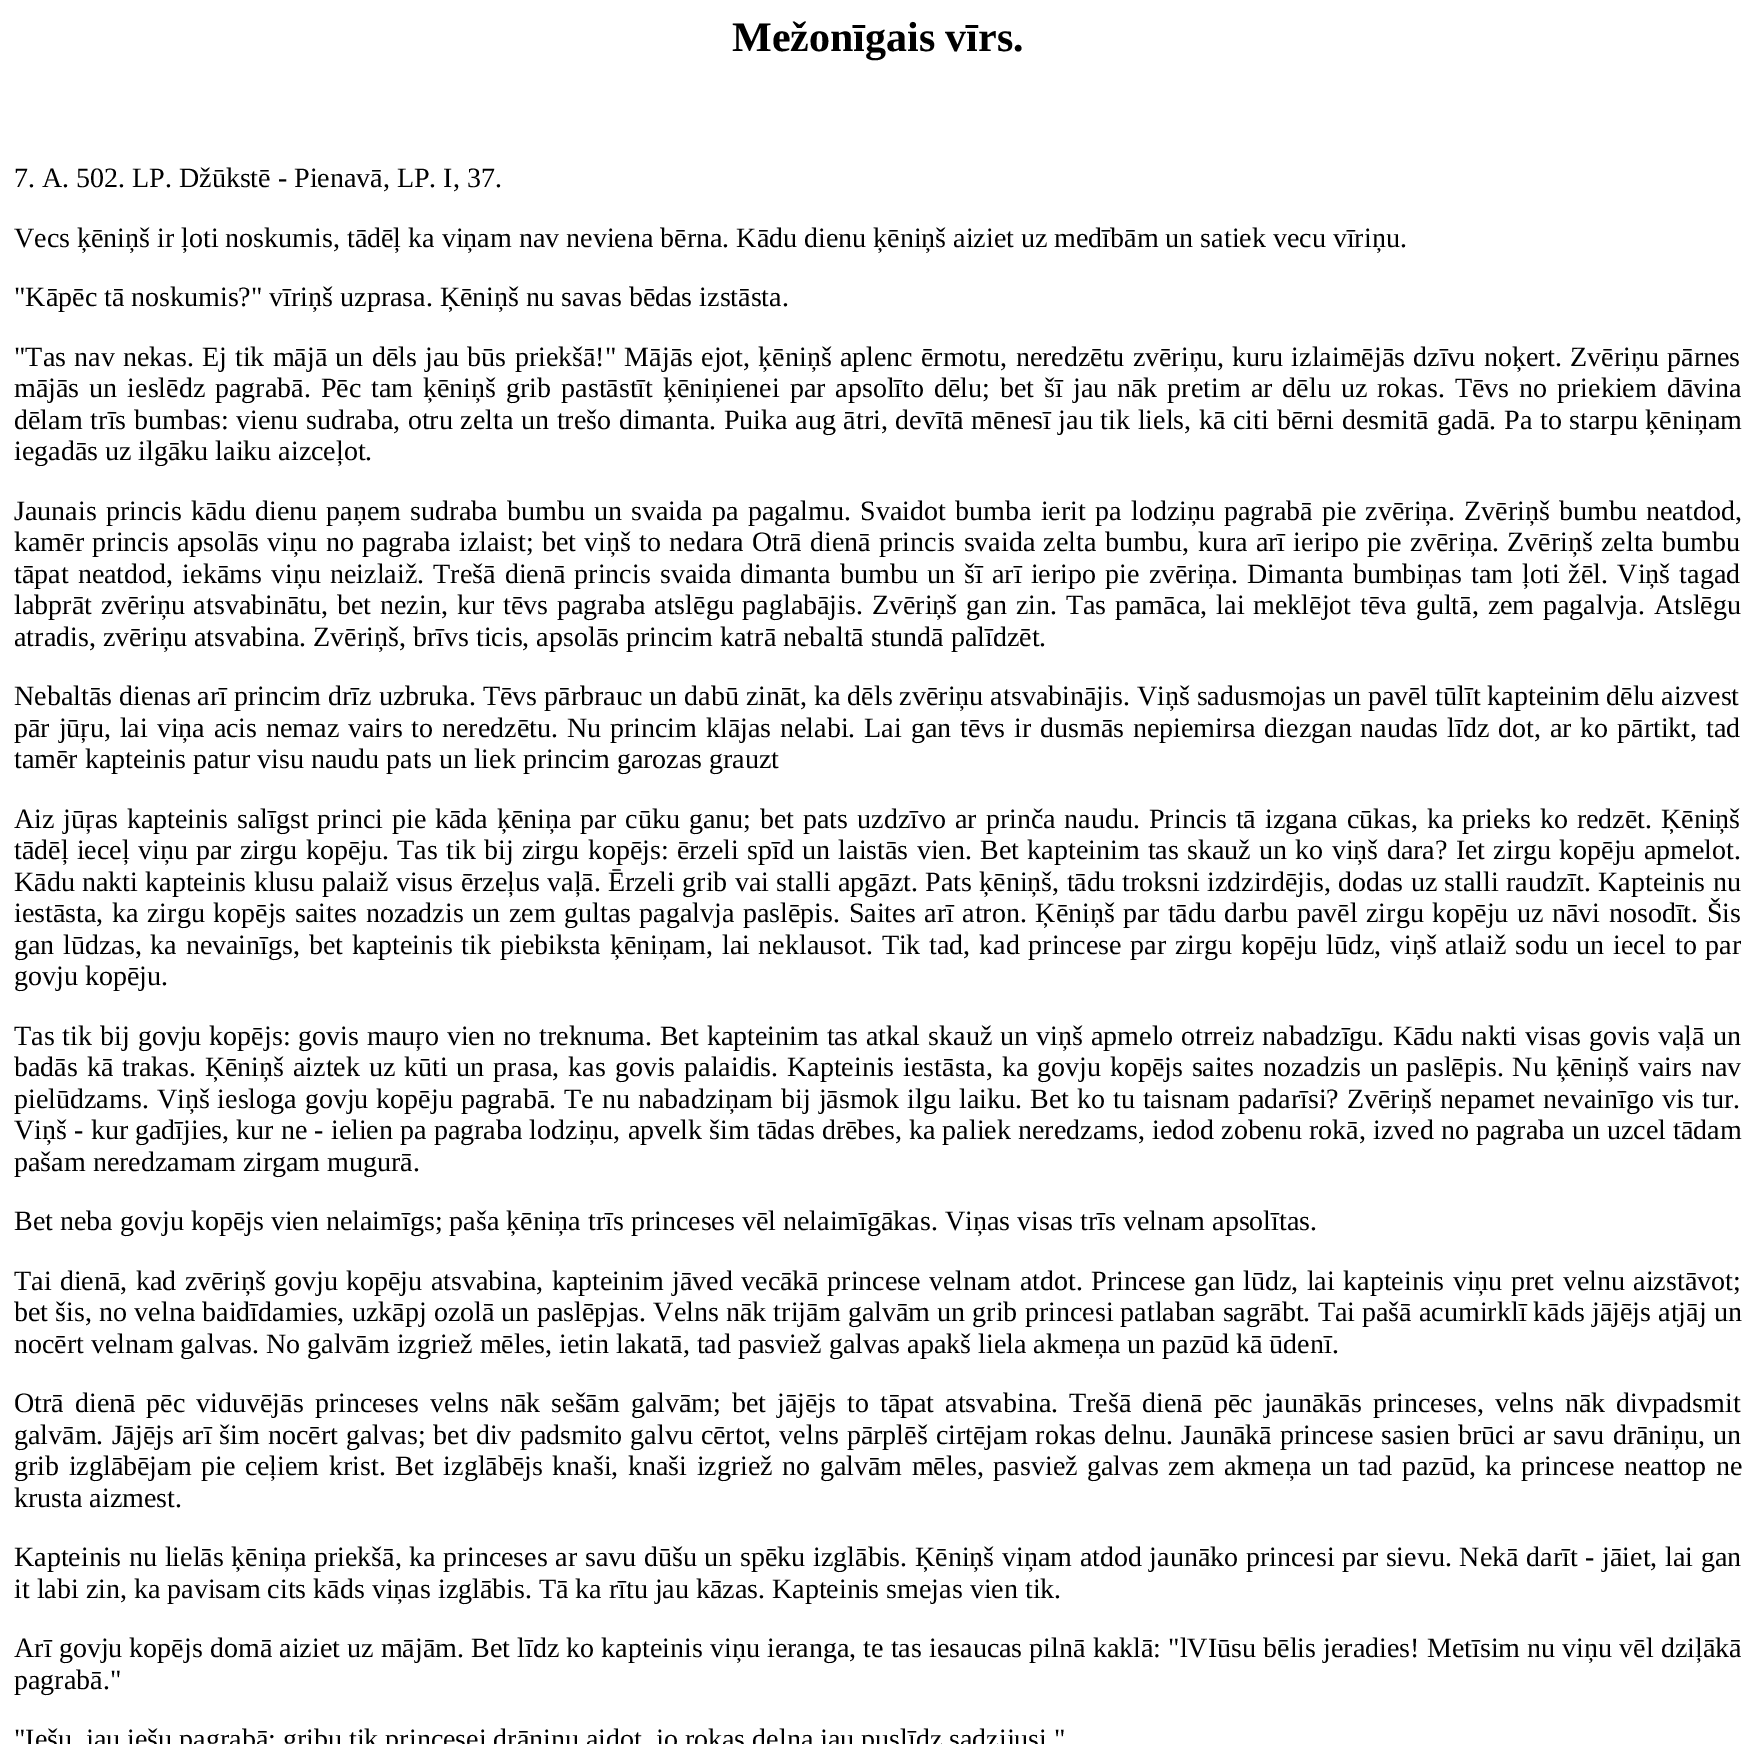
%!PS-Adobe-3.0
%%BoundingBox: 0 0 1755 1744
%%LanguageLevel: 3
%%Pages: 1
%%EndComments
%%BeginProlog
/m { moveto } bind def
/fn { [ exch dup neg 0 0 3 -1 roll 0 0 ] selectfont } def
/tx { moveto show } def
/bx { rectfill } def
%%EndProlog
%%BeginSetup
<< /PageSize [1755 1744] >> setpagedevice
%%EndSetup
%%Page: 1 1
0 1744 translate 1 -1 scale
4 setmiterlimit
1 setgray
0 0 1755 1744 bx
/LiberationSerif-Bold 42 fn
0 setgray
(Mežonīgais vīrs.) 732 51 tx
/LiberationSerif-Regular 28 fn
(7. A. 502. LP. Džūkstē - Pienavā, LP. I, 37.) 14 187 tx
(Vecs ķēniņš ir ļoti noskumis, tādēļ ka viņam nav neviena bērna. Kādu dienu ķēniņš aiziet uz medībām un satiek vecu vīriņu.) 14 247 tx
("Kāpēc tā noskumis?" vīriņš uzprasa. Ķēniņš nu savas bēdas izstāsta.) 14 306 tx
14 366 m 1.25 0 32 ("Tas nav nekas. Ej tik mājā un dēls jau būs priekšā!" Mājās ejot, ķēniņš aplenc ērmotu, neredzētu zvēriņu, kuru izlaimējās dzīvu noķert. Zvēriņu pārnes) widthshow
14 397 m 3 0 32 (mājās un ieslēdz pagrabā. Pēc tam ķēniņš grib pastāstīt ķēniņienei par apsolīto dēlu; bet šī jau nāk pretim ar dēlu uz rokas. Tēvs no priekiem dāvina) widthshow
14 429 m 1 0 32 (dēlam trīs bumbas:) widthshow
236 429 m 0.7 0 32 (vienu sudraba, otru zelta un trešo dimanta. Puika aug ātri, devītā mēnesī jau tik liels, kā citi bērni desmitā gadā. Pa to starpu ķēniņam) widthshow
(iegadās uz ilgāku laiku aizceļot.) 14 460 tx
14 520 m 2.3 0 32 (Jaunais princis kādu dienu paņem sudraba bumbu un svaida pa pagalmu. Svaidot bumba ierit pa lodziņu pagrabā pie zvēriņa. Zvēriņš bumbu neatdod,) widthshow
14 551 m 1.3 0 32 (kamēr princis apsolās viņu no pagraba izlaist; bet viņš to nedara Otrā dienā princis svaida zelta bumbu, kura arī ieripo pie zvēriņa. Zvēriņš zelta bumbu) widthshow
14 583 m 2.2 0 32 (tāpat neatdod, iekāms viņu neizlaiž. Trešā dienā princis svaida dimanta bumbu un šī arī ieripo pie zvēriņa. Dimanta bumbiņas tam ļoti žēl. Viņš tagad) widthshow
14 614 m 1.9 0 32 (labprāt zvēriņu atsvabinātu, bet nezin, kur tēvs pagraba atslēgu paglabājis. Zvēriņš gan zin. Tas pamāca, lai meklējot tēva gultā, zem pagalvja. Atslēgu) widthshow
(atradis, zvēriņu atsvabina. Zvēriņš, brīvs ticis, apsolās princim katrā nebaltā stundā palīdzēt.) 14 646 tx
(Nebaltās dienas arī princim drīz uzbruka. Tēvs pārbrauc un dabū zināt, ka dēls zvēriņu atsvabinājis. Viņš sadusmojas un pavēl tūlīt kapteinim dēlu aizvest) 14 705 tx
14 737 m 1.9 0 32 (pār jūŗu, lai viņa acis nemaz vairs to neredzētu. Nu princim klājas nelabi. Lai gan tēvs ir dusmās nepiemirsa diezgan naudas līdz dot, ar ko pārtikt, tad) widthshow
(tamēr kapteinis patur visu naudu pats un liek princim garozas grauzt) 14 768 tx
14 828 m 2 0 32 (Aiz jūŗas kapteinis salīgst princi pie kāda ķēniņa par cūku ganu; bet pats uzdzīvo ar prinča naudu. Princis tā izgana cūkas, ka prieks ko redzēt. Ķēniņš) widthshow
14 859 m 1.3 0 32 (tādēļ ieceļ viņu par zirgu kopēju. Tas tik bij zirgu kopējs: ērzeli spīd un laistās vien. Bet kapteinim tas skauž un ko viņš dara? Iet zirgu kopēju apmelot.) widthshow
14 891 m 0.3 0 32 (Kādu nakti kapteinis klusu palaiž visus ērzeļus vaļā. Ērzeli grib vai stalli apgāzt. Pats ķēniņš, tādu troksni izdzirdējis, dodas uz stalli raudzīt. Kapteinis nu) widthshow
14 922 m 1.6 0 32 (iestāsta, ka zirgu kopējs saites nozadzis un zem gultas pagalvja paslēpis. Saites arī atron. Ķēniņš par tādu darbu pavēl zirgu kopēju uz nāvi nosodīt. Šis) widthshow
14 954 m 1.75 0 32 (gan lūdzas, ka nevainīgs, bet kapteinis tik piebiksta ķēniņam, lai neklausot. Tik tad, kad princese par zirgu kopēju lūdz, viņš atlaiž sodu un iecel to par) widthshow
(govju kopēju.) 14 985 tx
14 1045 m 1.05 0 32 (Tas tik bij govju kopējs: govis mauŗo vien no treknuma. Bet kapteinim tas atkal skauž un viņš apmelo otrreiz nabadzīgu. Kādu nakti visas govis vaļā un) widthshow
14 1076 m 1.9 0 32 (badās kā trakas. Ķēniņš aiztek uz kūti un prasa, kas govis palaidis. Kapteinis iestāsta, ka govju kopējs saites nozadzis un paslēpis. Nu ķēniņš vairs nav) widthshow
14 1108 m 1 0 32 (pielūdzams. Viņš iesloga govju kopēju pagrabā. Te nu nabadziņam bij jāsmok ilgu laiku. Bet ko tu taisnam padarīsi? Zvēriņš nepamet nevainīgo vis tur.) widthshow
14 1139 m 0.15 0 32 (Viņš - kur gadījies, kur ne - ielien pa pagraba lodziņu, apvelk šim tādas drēbes, ka paliek neredzams, iedod zobenu rokā, izved no pagraba un uzcel tādam) widthshow
(pašam neredzamam zirgam mugurā.) 14 1171 tx
(Bet neba govju kopējs vien nelaimīgs; paša ķēniņa trīs princeses vēl nelaimīgākas. Viņas visas trīs velnam apsolītas.) 14 1230 tx
14 1290 m 1.4 0 32 (Tai dienā, kad zvēriņš govju kopēju atsvabina, kapteinim jāved vecākā princese velnam atdot. Princese gan lūdz, lai kapteinis viņu pret velnu aizstāvot;) widthshow
14 1321 m 0.2 0 32 (bet šis, no velna baidīdamies, uzkāpj ozolā un paslēpjas. Velns nāk trijām galvām un grib princesi patlaban sagrābt. Tai pašā acumirklī kāds jājējs atjāj un) widthshow
(nocērt velnam galvas. No galvām izgriež mēles, ietin lakatā, tad pasviež galvas apakš liela akmeņa un pazūd kā ūdenī.) 14 1353 tx
14 1412 m 4 0 32 (Otrā dienā pēc viduvējās princeses velns nāk sešām galvām; bet) widthshow
777 1412 m 4 0 32 (jājējs to tāpat atsvabina. Trešā dienā pēc jaunākās princeses, velns nāk divpadsmit) widthshow
14 1444 m 1.1 0 32 (galvām. Jājējs arī šim nocērt galvas; bet div padsmito galvu cērtot, velns pārplēš cirtējam rokas delnu. Jaunākā princese sasien brūci ar savu drāniņu, un) widthshow
14 1475 m 2.5 0 32 (grib izglābējam pie ceļiem krist. Bet izglābējs knaši, knaši izgriež no galvām mēles, pasviež galvas zem akmeņa un tad pazūd, ka princese neattop ne) widthshow
(krusta aizmest.) 14 1507 tx
14 1566 m 0.7 0 32 (Kapteinis nu lielās ķēniņa priekšā, ka princeses ar savu dūšu un spēku izglābis. Ķēniņš viņam atdod jaunāko princesi par sievu. Nekā darīt - jāiet, lai gan) widthshow
(it labi zin, ka pavisam cits kāds viņas izglābis. Tā ka rītu jau kāzas. Kapteinis smejas vien tik.) 14 1598 tx
14 1657 m 0.2 0 32 (Arī govju kopējs domā aiziet uz mājām. Bet līdz ko kapteinis viņu ieranga, te tas iesaucas pilnā kaklā: "lVIūsu bēlis jeradies! Metīsim nu viņu vēl dziļākā) widthshow
(pagrabā.") 14 1689 tx
("Iešu, jau iešu pagrabā; gribu tik princesei drāniņu aidot, jo rokas delna jau puslīdz sadzijusi.") 14 1748 tx
showpage
%%EOF
